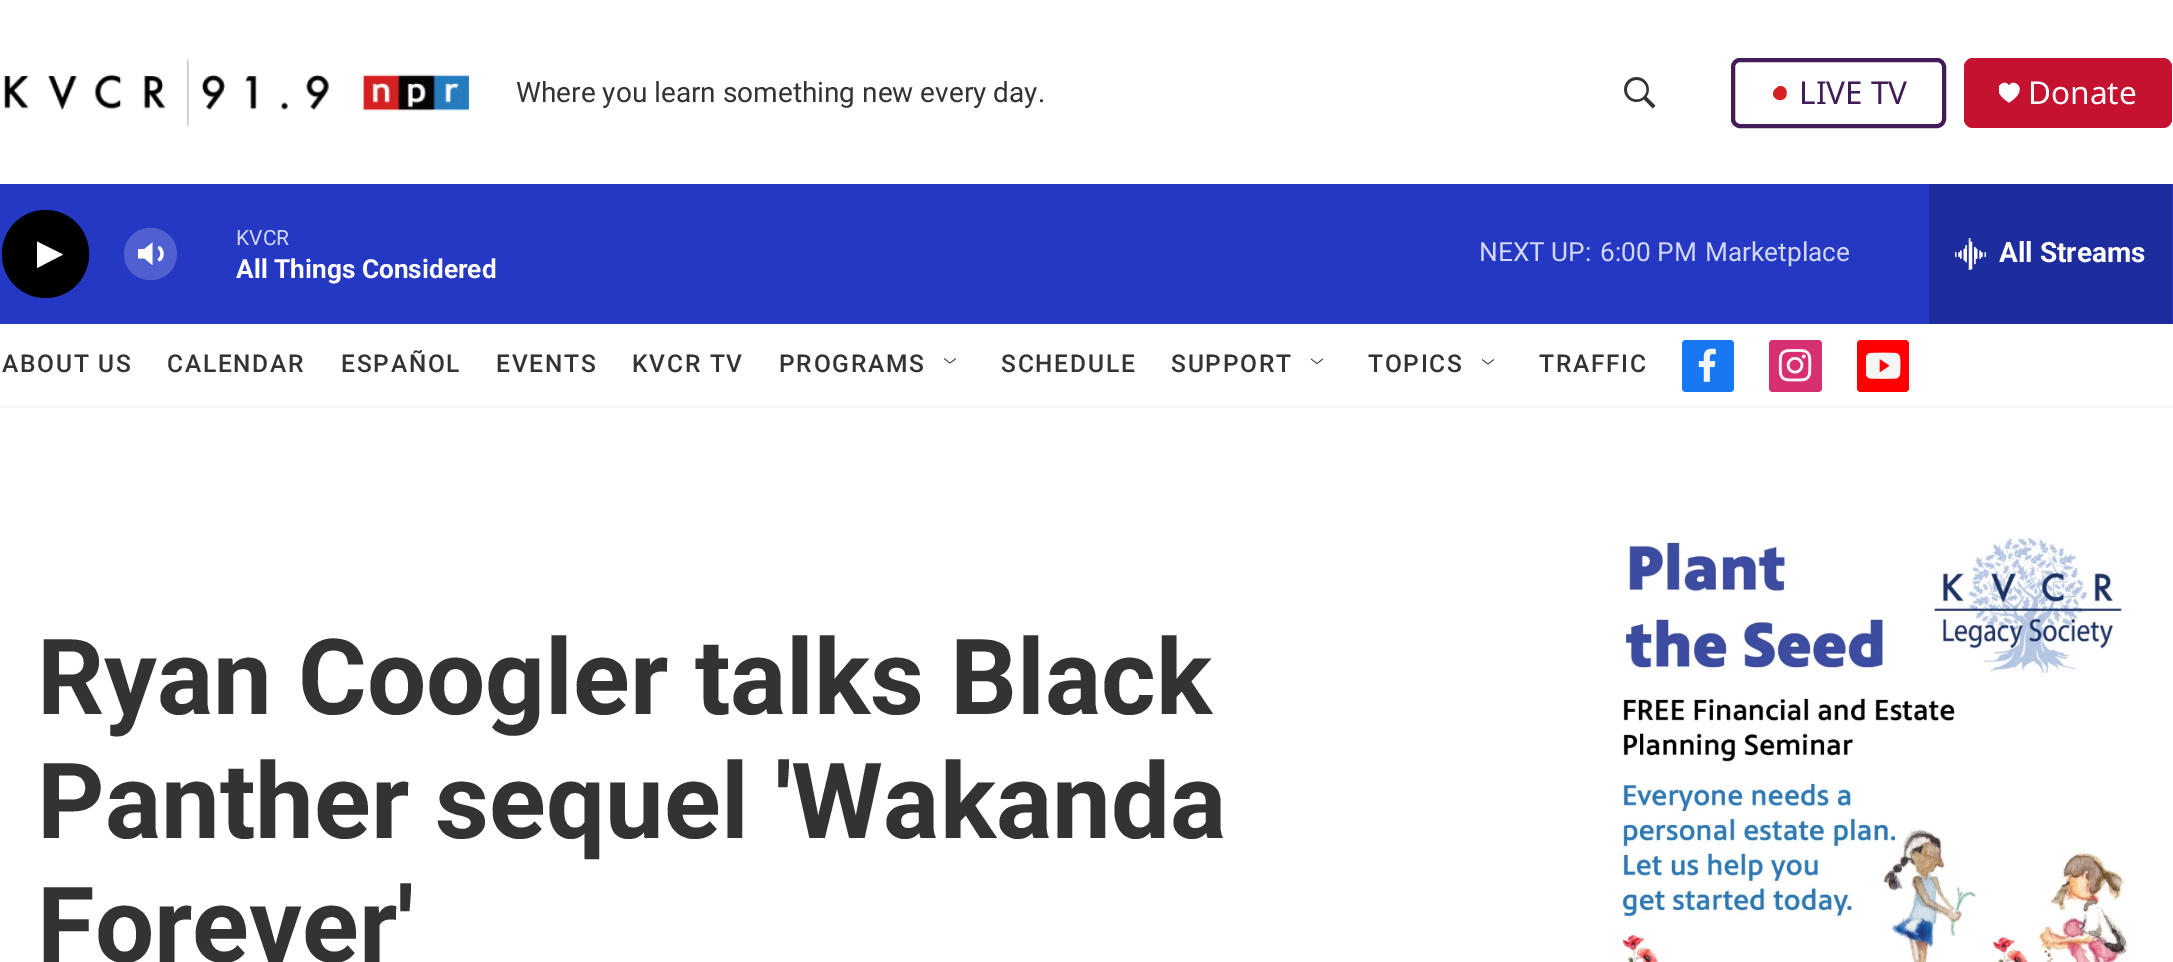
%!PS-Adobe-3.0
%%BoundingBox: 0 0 2173 962
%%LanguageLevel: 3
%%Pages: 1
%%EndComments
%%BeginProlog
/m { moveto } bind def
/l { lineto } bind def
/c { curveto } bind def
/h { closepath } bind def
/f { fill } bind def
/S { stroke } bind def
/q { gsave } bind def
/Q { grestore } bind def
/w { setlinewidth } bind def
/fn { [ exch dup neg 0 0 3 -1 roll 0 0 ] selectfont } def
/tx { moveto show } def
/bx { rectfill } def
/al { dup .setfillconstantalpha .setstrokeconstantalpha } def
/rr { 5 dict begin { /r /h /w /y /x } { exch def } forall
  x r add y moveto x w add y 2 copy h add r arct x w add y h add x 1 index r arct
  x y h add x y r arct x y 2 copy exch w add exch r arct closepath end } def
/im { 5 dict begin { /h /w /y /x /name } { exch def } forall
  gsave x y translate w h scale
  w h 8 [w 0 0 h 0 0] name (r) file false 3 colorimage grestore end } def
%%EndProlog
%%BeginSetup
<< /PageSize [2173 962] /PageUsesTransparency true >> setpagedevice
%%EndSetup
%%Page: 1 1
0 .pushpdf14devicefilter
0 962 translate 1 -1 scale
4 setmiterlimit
1 setgray
0 0 2173 962 bx
0.961 setgray
0 406 2173 2 bx
(image0.raw) 3 59 466 67 im
/Roboto-Regular 28 fn
0.2 setgray
(Where you learn something new every day.) 516 102 tx
(image1.raw) 1624 77 32 32 im
0.255 0.11 0.345 setrgbcolor
4 w
1733 60 211 66 7 rr S
0.839 0.125 0.129 setrgbcolor
1780 86 m 1789 86 1789 100 1780 100 c 1778 100 1776.5 99.5 1775 98 c 1771.5 94.5 1773 90.5 1776.5 88 c 1777.5 87 1779 86 1780 86 c h f
/NotoSans-Regular 31.5 fn
0.255 0.11 0.345 setrgbcolor
(LIVE TV) 1799 104 tx
0.769 0.071 0.188 setrgbcolor
1964 58 208 70 9 rr f
q
1999 82 21 21 rectclip
1 setgray
2009 86 m 2005.5 77 1987 89 2009 102.5 c 2031 89 2012.5 77 2009 86 c h f
Q
1 setgray
(Donate) 2028 104 tx
0.145 0.22 0.769 setrgbcolor
0 184 2173 140 bx
0 setgray
2 210 87 88 43.5 rr f
1 setgray
37 241.5 m 63 254.5 l 37 268 l h f
152.5 242.5 m 144.5 249 l 138 249 l 138 258.5 l 144.5 258.5 l 152.5 265 l h f
3.2 w
1 setlinecap
1 setlinejoin
159.5 248 m 163 251.5 163 256.5 159.5 259.5 c S
0.2 al
124 228 53 52 26 rr f
/Roboto-Regular 21 fn
1 al
0.827 0.843 0.953 setrgbcolor
(KVCR) 236 245 tx
/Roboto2-Bold 26.25 fn
1 setgray
(All Things Considered) 236 278 tx
/Roboto-Regular 26.25 fn
0.827 0.843 0.953 setrgbcolor
(NEXT UP:) 1479 261 tx
(6:00 PM) 1600 261 tx
(Marketplace) 1705 261 tx
0.118 0.176 0.616 setrgbcolor
1929 184 243 140 bx
(image2.raw) 1955 238 31 32 im
/Roboto2-Bold 28 fn
1 setgray
(All Streams) 1999 262 tx
/Roboto-Medium 24.5 fn
0.2 setgray
2 372 m 1.75 0 (ABOUT US) ashow
167 372 m 1.75 0 (CALENDAR) ashow
341 372 m 1.75 0 (ESPAÑOL) ashow
496 372 m 1.75 0 (EVENTS) ashow
632 372 m 1.75 0 (KVCR TV) ashow
779 372 m 1.75 0 (PROGRAMS) ashow
(image3.raw) 944 358 12 6 im
1001 372 m 1.75 0 (SCHEDULE) ashow
1171 372 m 1.75 0 (SUPPORT) ashow
(image4.raw) 1311 358 12 7 im
1368 372 m 1.75 0 (TOPICS) ashow
(image5.raw) 1482 359 12 6 im
1539 372 m 1.75 0 (TRAFFIC) ashow
0.09 0.471 0.949 setrgbcolor
1682 340 52 52 4 rr f
(image6.raw) 1698 348 18 34 im
0.839 0.188 0.447 setrgbcolor
1769 340 53 52 4 rr f
(image7.raw) 1778 349 34 33 im
1 0 0 setrgbcolor
1857 340 52 52 4 rr f
(image8.raw) 1866 352 35 27 im
/Roboto-Bold 105 fn
0.2 setgray
(Ryan Coogler talks Black) 37 714 tx
(Panther sequel 'Wakanda) 37 838 tx
(Forever') 37 962 tx
(image9.raw) 1622 537 507 425 im
.poppdf14devicefilter showpage
%%EOF
